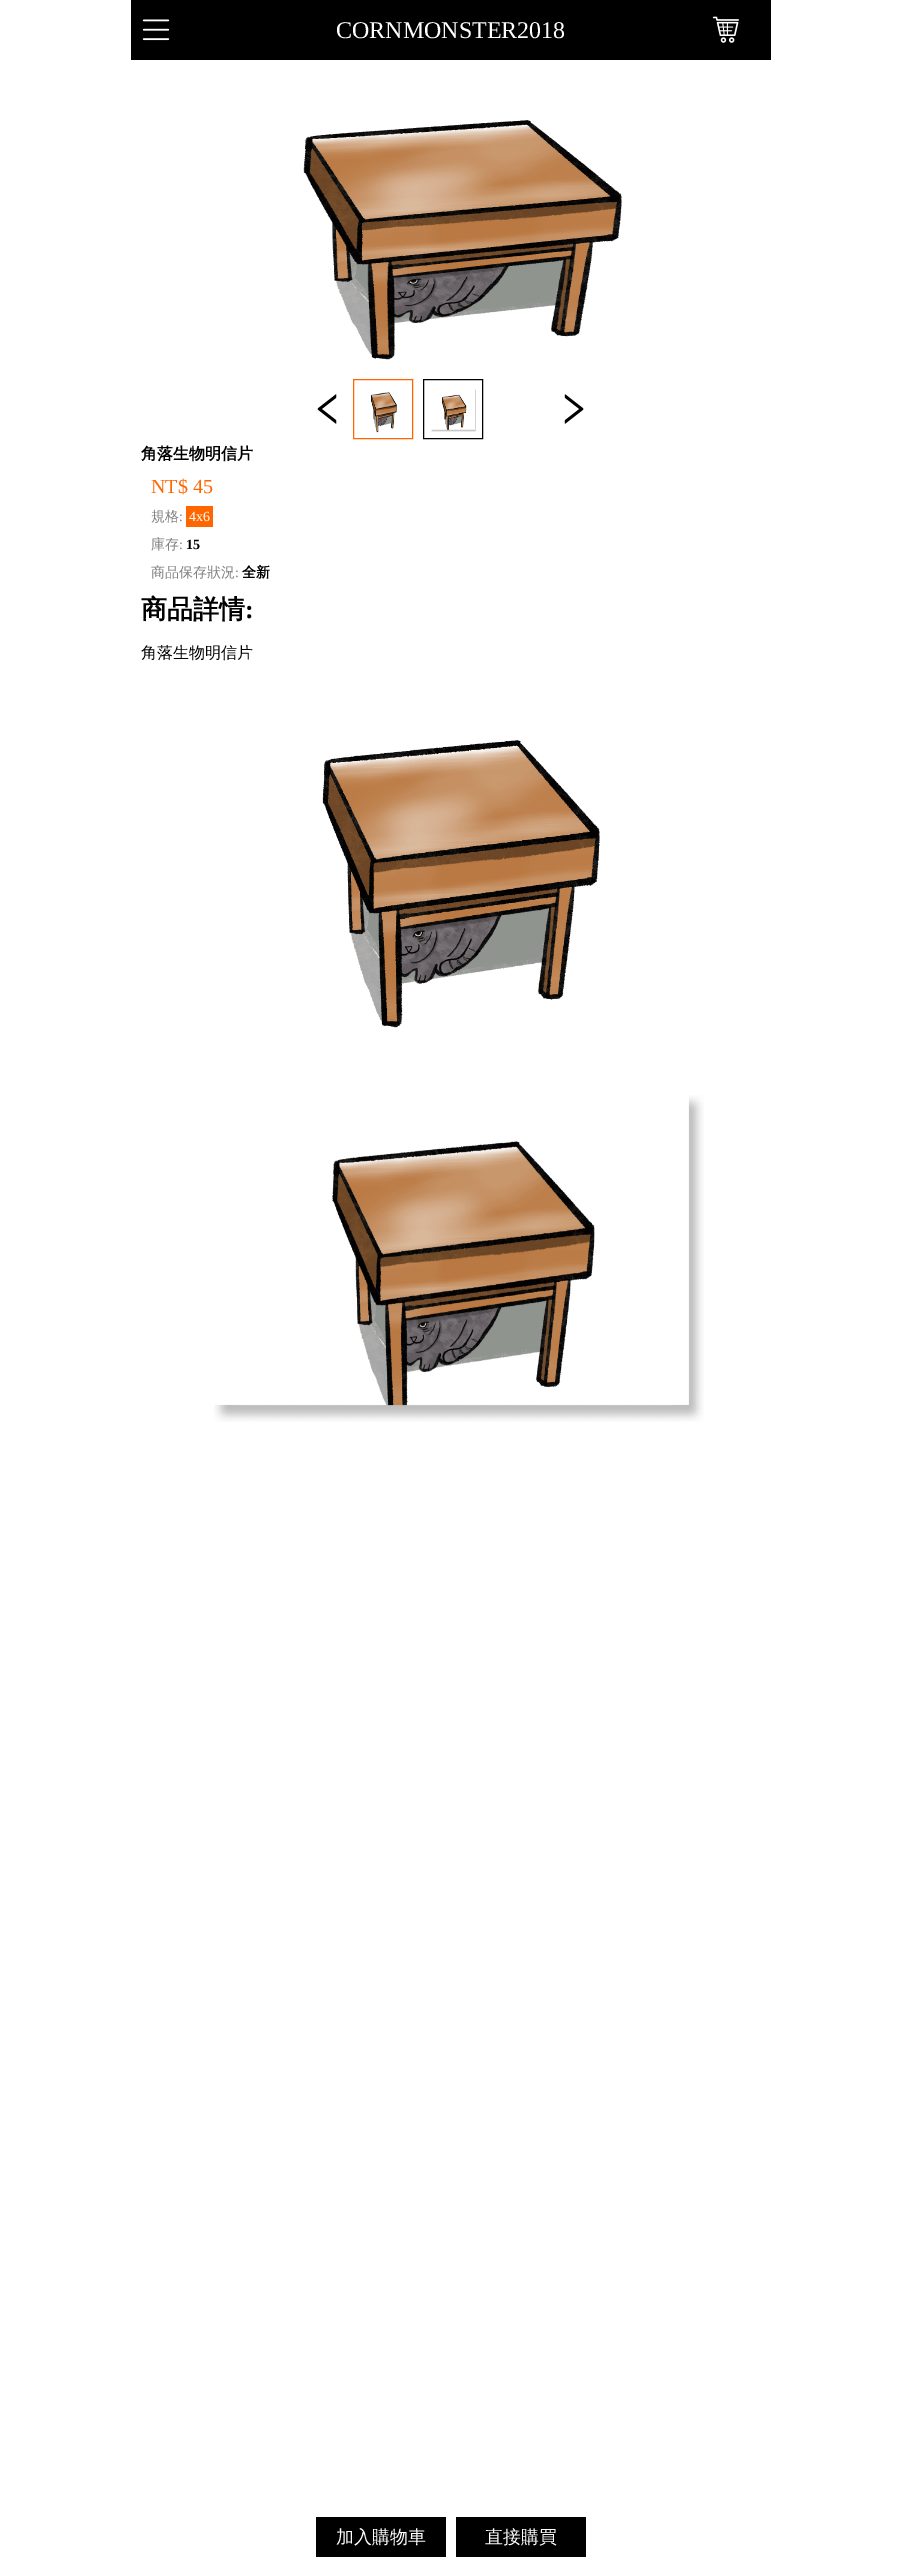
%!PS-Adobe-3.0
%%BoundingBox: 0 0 901 2562
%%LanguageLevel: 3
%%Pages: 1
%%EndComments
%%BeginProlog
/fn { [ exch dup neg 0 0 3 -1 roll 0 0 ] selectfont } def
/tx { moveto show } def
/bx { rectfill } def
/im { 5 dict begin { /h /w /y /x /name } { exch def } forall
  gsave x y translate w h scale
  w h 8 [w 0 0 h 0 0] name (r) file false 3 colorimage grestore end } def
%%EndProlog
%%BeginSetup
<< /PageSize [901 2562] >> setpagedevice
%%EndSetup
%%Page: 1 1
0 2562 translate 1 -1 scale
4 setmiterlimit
1 setgray
0 0 901 2562 bx
0 setgray
131 0 640 60 bx
(image0.raw) 142 19 28 22 im
/LiberationSerif-Regular 24 fn
1 setgray
(CORNMONSTER2018) 336 38 tx
(image1.raw) 712 16 27 27 im
(image2.raw) 303 120 319 240 im
(image3.raw) 317 394 20 30 im
1 0.4 0 setrgbcolor
353.5 379.5 59 59 rectstroke
(image4.raw) 371 392 26 41 im
0 setgray
423.5 379.5 59 59 rectstroke
(image5.raw) 431 389 45 43 im
(image6.raw) 564 394 20 30 im
/WenQuanYiZenHei-Bold 16 fn
(角落生物明信片) 141 459 tx
/LiberationSerif-Regular 20 fn
1 0.4 0 setrgbcolor
(NT$ 45) 151 493 tx
/WenQuanYiZenHei-Medium 14 fn
0.502 setgray
(規格) 151 521 tx
/LiberationSerif-Regular 14 fn
(:) 179 521 tx
1 0.4 0 setrgbcolor
186 506 27 21 bx
1 setgray
(4x6) 189 521 tx
/WenQuanYiZenHei-Medium 14 fn
0.502 setgray
(庫存) 151 549 tx
/LiberationSerif-Regular 14 fn
(:) 179 549 tx
/LiberationSerif-Bold 14 fn
0 setgray
(15) 186 549 tx
/WenQuanYiZenHei-Medium 14 fn
0.502 setgray
(商品保存狀況) 151 577 tx
/LiberationSerif-Regular 14 fn
(:) 235 577 tx
/WenQuanYiZenHei-Bold 14 fn
0 setgray
(全新) 242 577 tx
/WenQuanYiZenHei-Bold 26 fn
(商品詳情) 141 618 tx
/LiberationSerif-Bold 26 fn
(:) 245 618 tx
/WenQuanYiZenHei-Medium 16 fn
(角落生物明信片) 141 658 tx
(image7.raw) 322 740 278 288 im
(image8.raw) 214 1095 490 327 im
316 2517 130 40 bx
/WenQuanYiZenHei-Medium 18 fn
1 setgray
(加入購物車) 336 2543 tx
0 setgray
456 2517 130 40 bx
1 setgray
(直接購買) 485 2543 tx
showpage
%%EOF
